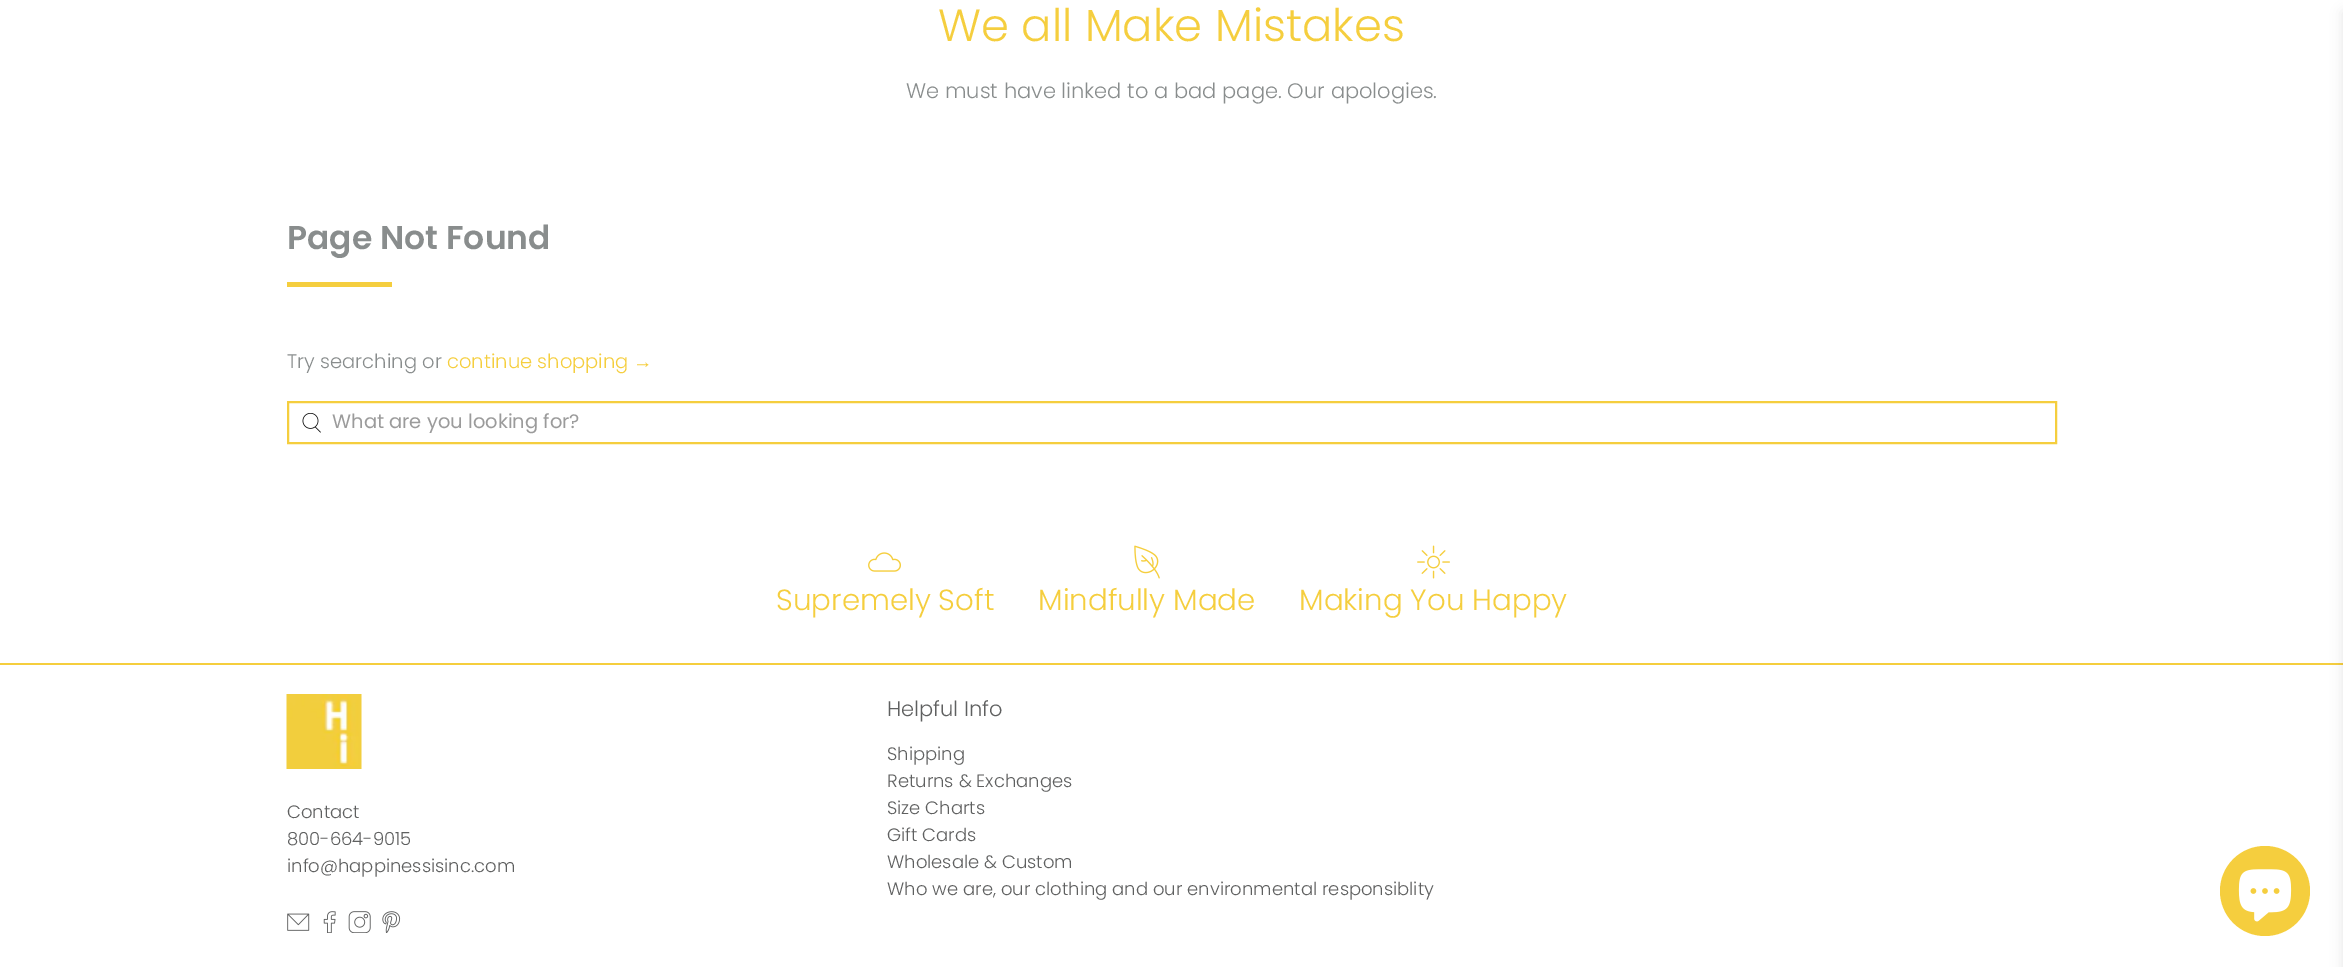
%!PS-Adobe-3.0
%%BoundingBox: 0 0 2343 967
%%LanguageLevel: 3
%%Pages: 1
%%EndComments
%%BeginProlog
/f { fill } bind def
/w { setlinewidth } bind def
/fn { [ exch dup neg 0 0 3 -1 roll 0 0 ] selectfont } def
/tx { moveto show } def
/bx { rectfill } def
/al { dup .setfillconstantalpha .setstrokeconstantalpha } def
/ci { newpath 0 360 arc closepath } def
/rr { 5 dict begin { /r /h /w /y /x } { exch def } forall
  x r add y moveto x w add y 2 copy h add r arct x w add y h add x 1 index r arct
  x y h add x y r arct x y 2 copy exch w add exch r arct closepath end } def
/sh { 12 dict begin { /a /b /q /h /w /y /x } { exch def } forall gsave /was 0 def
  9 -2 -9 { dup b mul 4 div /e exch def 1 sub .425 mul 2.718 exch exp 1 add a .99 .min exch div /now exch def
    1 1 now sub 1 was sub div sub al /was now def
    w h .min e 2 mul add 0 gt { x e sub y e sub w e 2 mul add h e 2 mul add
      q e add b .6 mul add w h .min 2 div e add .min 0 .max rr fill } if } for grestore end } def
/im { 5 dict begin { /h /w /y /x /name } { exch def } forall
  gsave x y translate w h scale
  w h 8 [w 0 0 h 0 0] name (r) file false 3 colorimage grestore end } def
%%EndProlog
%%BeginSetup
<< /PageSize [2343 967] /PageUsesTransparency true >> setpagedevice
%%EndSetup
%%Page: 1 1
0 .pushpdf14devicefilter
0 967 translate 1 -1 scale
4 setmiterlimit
1 setgray
0 0 2343 967 bx
/Poppins-Light 45 fn
0.961 0.808 0.243 setrgbcolor
(We all Make Mistakes) 938 41 tx
/Poppins-Light 21 fn
0.537 0.553 0.553 setrgbcolor
(We must have linked to a bad page. Our apologies.) 906 98 tx
/Poppins-SemiBold 33 fn
(Page Not Found) 287 249 tx
0.961 0.808 0.243 setrgbcolor
287 282 105 5 bx
/Poppins-Light 19.5 fn
0.537 0.553 0.553 setrgbcolor
(Try searching or) 287 368 tx
0.961 0.808 0.243 setrgbcolor
(continue shopping) 447 368 tx
/LiberationSans-Regular 19.5 fn
(→) 633 368 tx
2 w
288 402 1768 41 rectstroke
(image0.raw) 302 413 19 20 im
/Poppins-Regular 19.5 fn
0.608 setgray
(What are you looking for?) 332 428 tx
0.961 0.808 0.243 setrgbcolor
0 663 2343 2 bx
0.039 setgray
2343 12 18 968 0 6 0.1 sh
(image1.raw) 868 552 33 20 im
/Poppins-Light 29.25 fn
0.961 0.808 0.243 setrgbcolor
(Supremely Soft) 776 610 tx
(image2.raw) 1134 545 26 34 im
(Mindfully Made) 1038 610 tx
(image3.raw) 1417 545 33 34 im
(Making You Happy) 1299 610 tx
(image4.raw) 286 694 76 75 im
/Poppins-Light 18 fn
0.373 0.376 0.376 setrgbcolor
(Contact) 287 818 tx
(800-664-9015) 287 845 tx
(info@happinessisinc.com) 287 872 tx
(image5.raw) 287 913 23 18 im
(image6.raw) 323 911 13 22 im
(image7.raw) 348 911 23 22 im
(image8.raw) 382 911 19 22 im
/Poppins-Light 21 fn
(Helpful Info) 887 716 tx
/Poppins-Light 18 fn
(Shipping) 887 760 tx
(Returns & Exchanges) 887 787 tx
(Size Charts) 887 814 tx
(Gift Cards) 887 841 tx
(Wholesale & Custom) 887 868 tx
(Who we are, our clothing and our environmental responsiblity) 887 895 tx
0.961 0.808 0.243 setrgbcolor
2265 891 45 ci f
(image9.raw) 2238 869 54 53 im
.poppdf14devicefilter showpage
%%EOF
